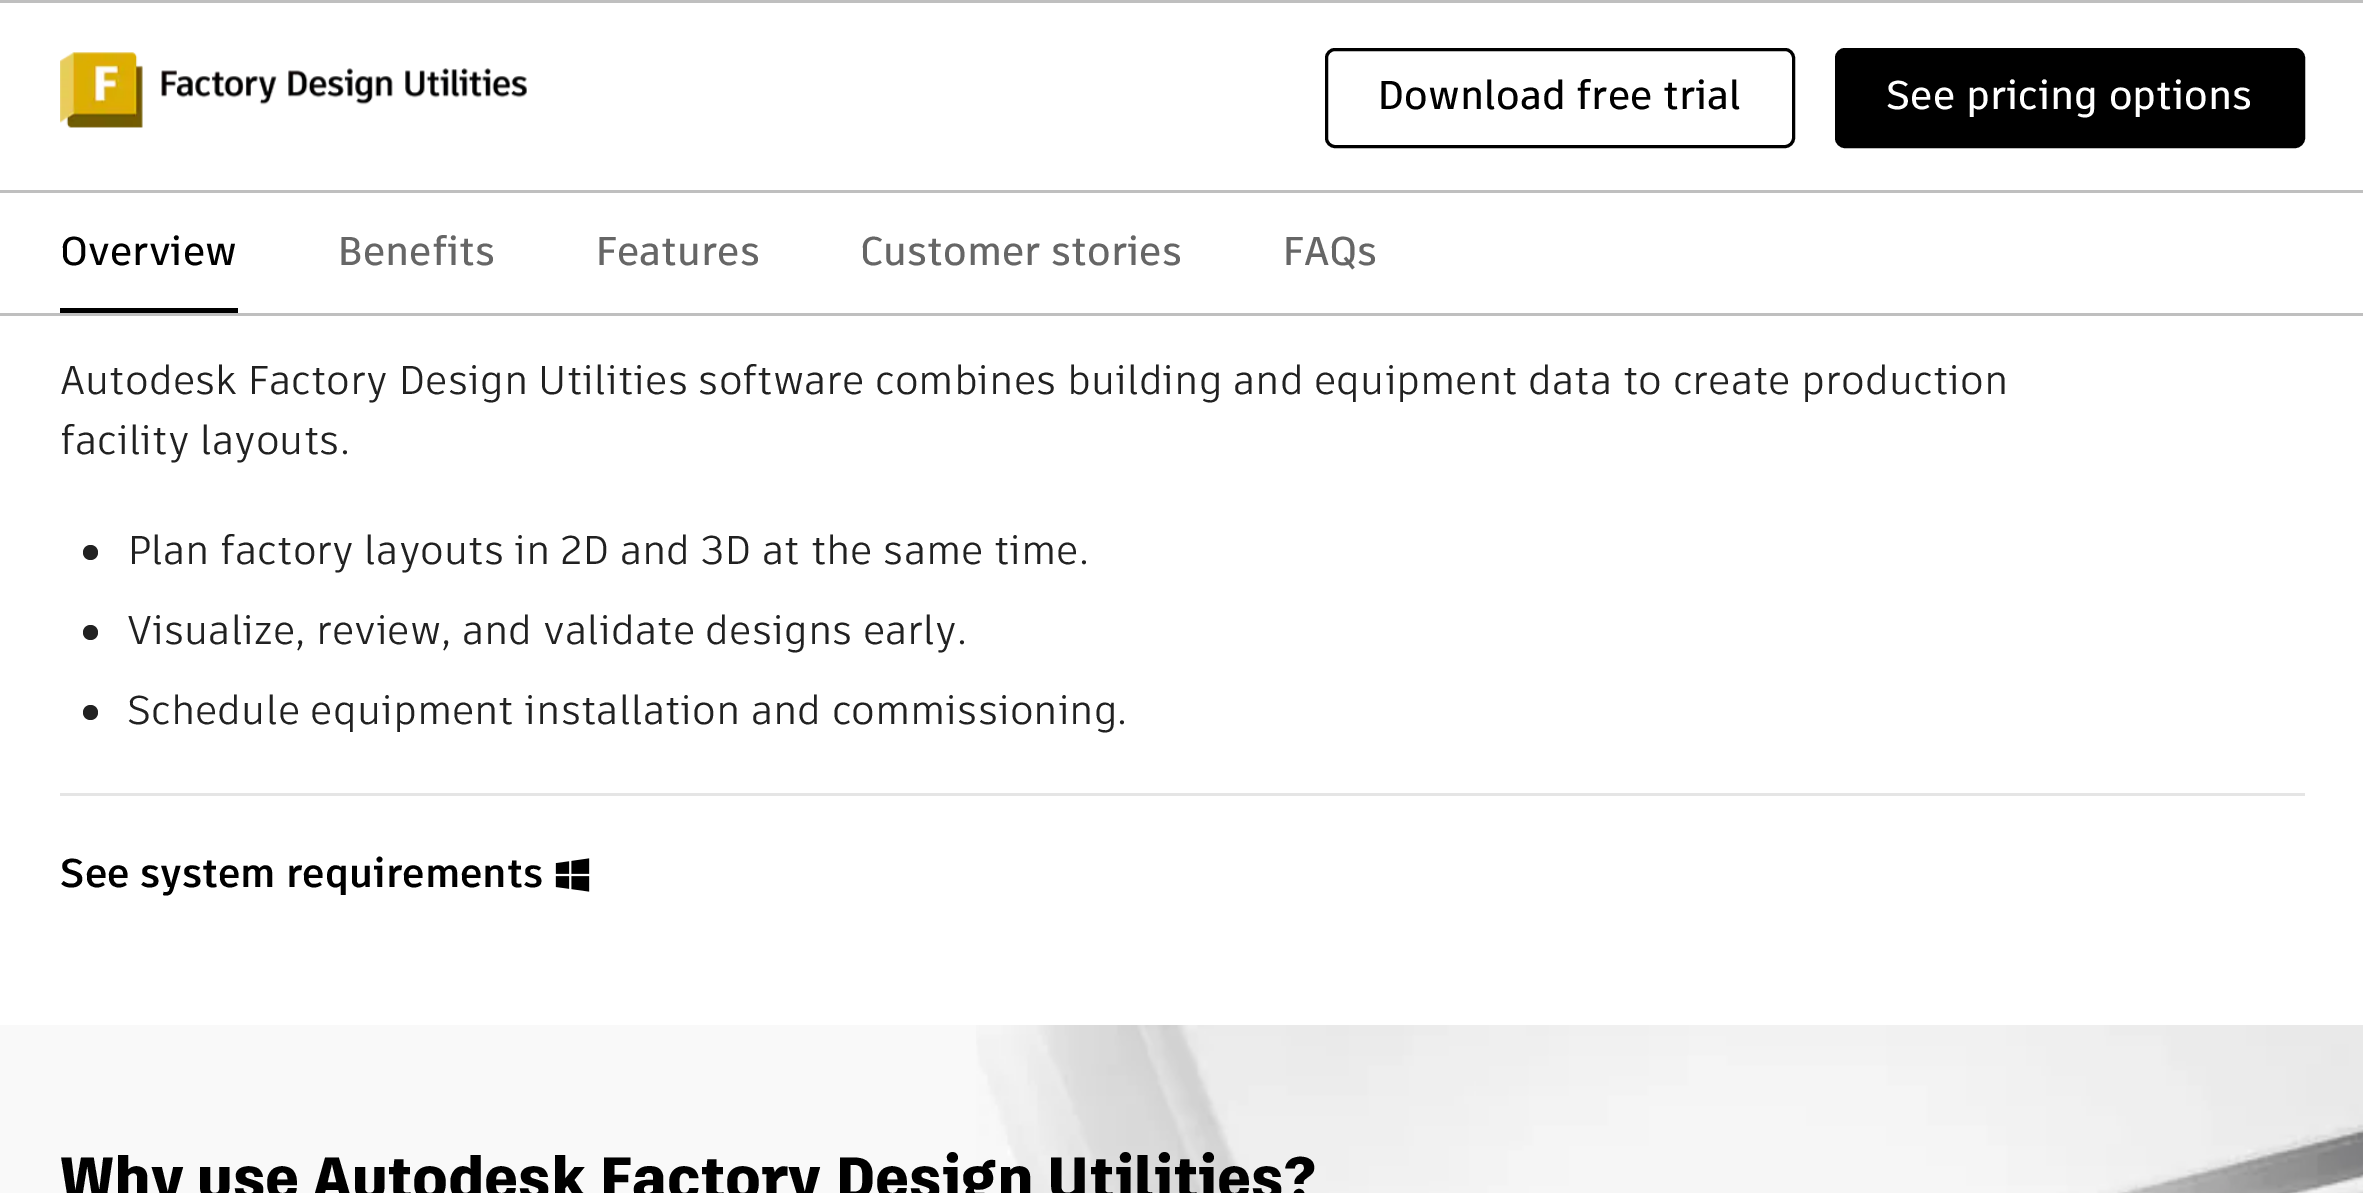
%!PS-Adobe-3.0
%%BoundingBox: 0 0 2363 1193
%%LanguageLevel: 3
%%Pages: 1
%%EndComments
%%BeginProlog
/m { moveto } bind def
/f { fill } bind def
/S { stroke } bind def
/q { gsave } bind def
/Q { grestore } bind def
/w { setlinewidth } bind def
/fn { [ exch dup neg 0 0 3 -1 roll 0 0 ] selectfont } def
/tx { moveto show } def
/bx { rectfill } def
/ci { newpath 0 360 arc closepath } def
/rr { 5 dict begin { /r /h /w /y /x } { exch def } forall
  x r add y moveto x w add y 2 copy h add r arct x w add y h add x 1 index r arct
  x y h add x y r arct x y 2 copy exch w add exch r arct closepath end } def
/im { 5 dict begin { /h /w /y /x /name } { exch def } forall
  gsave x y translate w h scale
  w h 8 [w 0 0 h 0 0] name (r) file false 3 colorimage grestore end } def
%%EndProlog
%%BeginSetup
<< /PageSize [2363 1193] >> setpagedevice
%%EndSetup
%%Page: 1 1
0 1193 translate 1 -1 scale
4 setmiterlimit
1 setgray
0 0 2363 1193 bx
0.749 setgray
0 0 2363 3 bx
0 190 2363 3 bx
(image0.raw) 60 52 467 76 im
0 setgray
3 w
1326.5 49.5 467 97 8.5 rr S
/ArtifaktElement-SemiBold 40 fn
(Download free trial) 1377 109 tx
1836.5 49.5 467 97 8.5 rr q f Q
S
1 setgray
(See pricing options) 1886 109 tx
0.749 setgray
0 313 2363 3 bx
0 setgray
60 308 178 5 bx
(Overview) 60 265 tx
0.4 setgray
(Benefits) 337 265 tx
(Features) 595 265 tx
(Customer stories) 860 265 tx
(FAQs) 1282 265 tx
/ArtifaktElement-Regular 40 fn
0.129 setgray
(Autodesk Factory Design Utilities software combines building and equipment data to create production) 60 394 tx
(facility layouts.) 60 454 tx
90.5 552.5 7.5 ci f
(Plan factory layouts in 2D and 3D at the same time.) 127 564 tx
90.5 632.5 7.5 ci f
(Visualize, review, and validate designs early.) 127 644 tx
90.5 712.5 7.5 ci f
(Schedule equipment installation and commissioning.) 127 724 tx
0.898 setgray
60 793 2245 3 bx
/ArtifaktElement-Bold 40 fn
0 setgray
(See system requirements) 60 887 tx
(image1.raw) 555 858 35 34 im
0.976 setgray
0 1025 976 168 bx
(image2.raw) 976 1025 1387 168 im
/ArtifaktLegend-ExtraBold 59.35 fn
0 setgray
60 1199 m -0.25 0 32 (Why use Autodesk Factory Design Utilities?) widthshow
showpage
%%EOF
